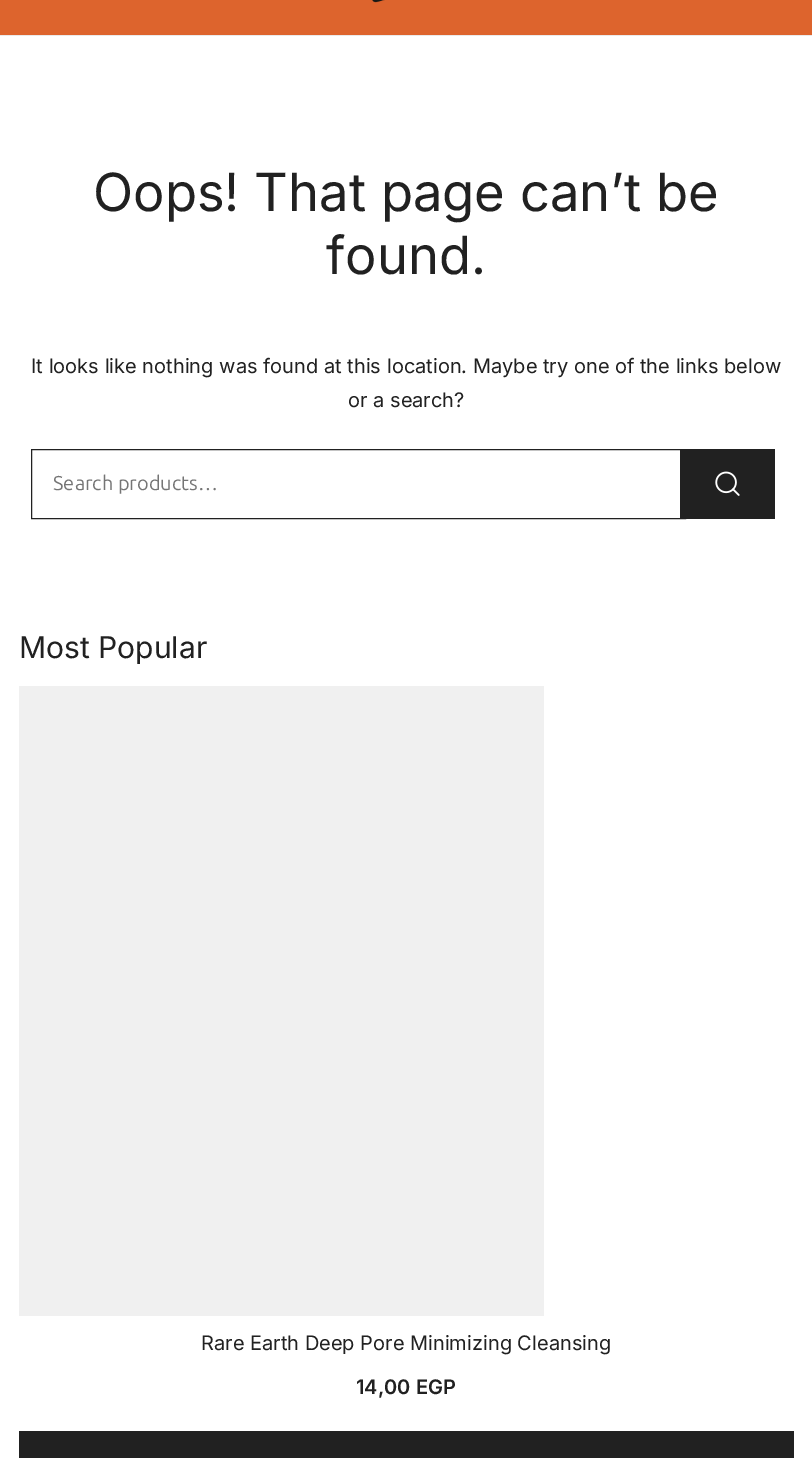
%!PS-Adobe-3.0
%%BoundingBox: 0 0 812 1458
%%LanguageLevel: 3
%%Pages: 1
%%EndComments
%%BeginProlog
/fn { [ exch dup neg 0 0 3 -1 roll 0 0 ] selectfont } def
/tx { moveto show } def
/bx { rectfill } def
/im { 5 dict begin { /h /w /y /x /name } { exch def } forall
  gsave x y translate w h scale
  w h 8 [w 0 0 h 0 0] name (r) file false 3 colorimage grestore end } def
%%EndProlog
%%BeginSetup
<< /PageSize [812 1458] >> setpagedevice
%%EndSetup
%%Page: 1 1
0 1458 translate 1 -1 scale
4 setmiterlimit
1 setgray
0 0 812 1458 bx
0.867 0.392 0.176 setrgbcolor
0 0 812 35 bx
0.918 setgray
0 35 812 1 bx
(image0.raw) 372 0 13 3 im
/Inter-Regular 52.5 fn
0.129 setgray
(Oops! That page can’t be) 93 211 tx
(found.) 326 274 tx
/Inter-Regular 20 fn
(It looks like nothing was found at this location. Maybe try one of the links below) 31 373 tx
(or a search?) 348 407 tx
31.5 449.5 654 69 rectstroke
/Ubuntu-Regular 20 fn
0.459 setgray
(Search products…) 53 490 tx
0.129 setgray
680 449 95 70 bx
(image1.raw) 715 471 25 25 im
/Inter-Regular 30 fn
(Most Popular) 19 658 tx
0.941 setgray
19 686 525 630 bx
/Inter-Regular 20 fn
0.129 setgray
(Rare Earth Deep Pore Minimizing Cleansing) 201 1350 tx
/Inter-SemiBold 20 fn
(14,00 EGP) 356 1394 tx
19 1431 775 27 bx
showpage
%%EOF
